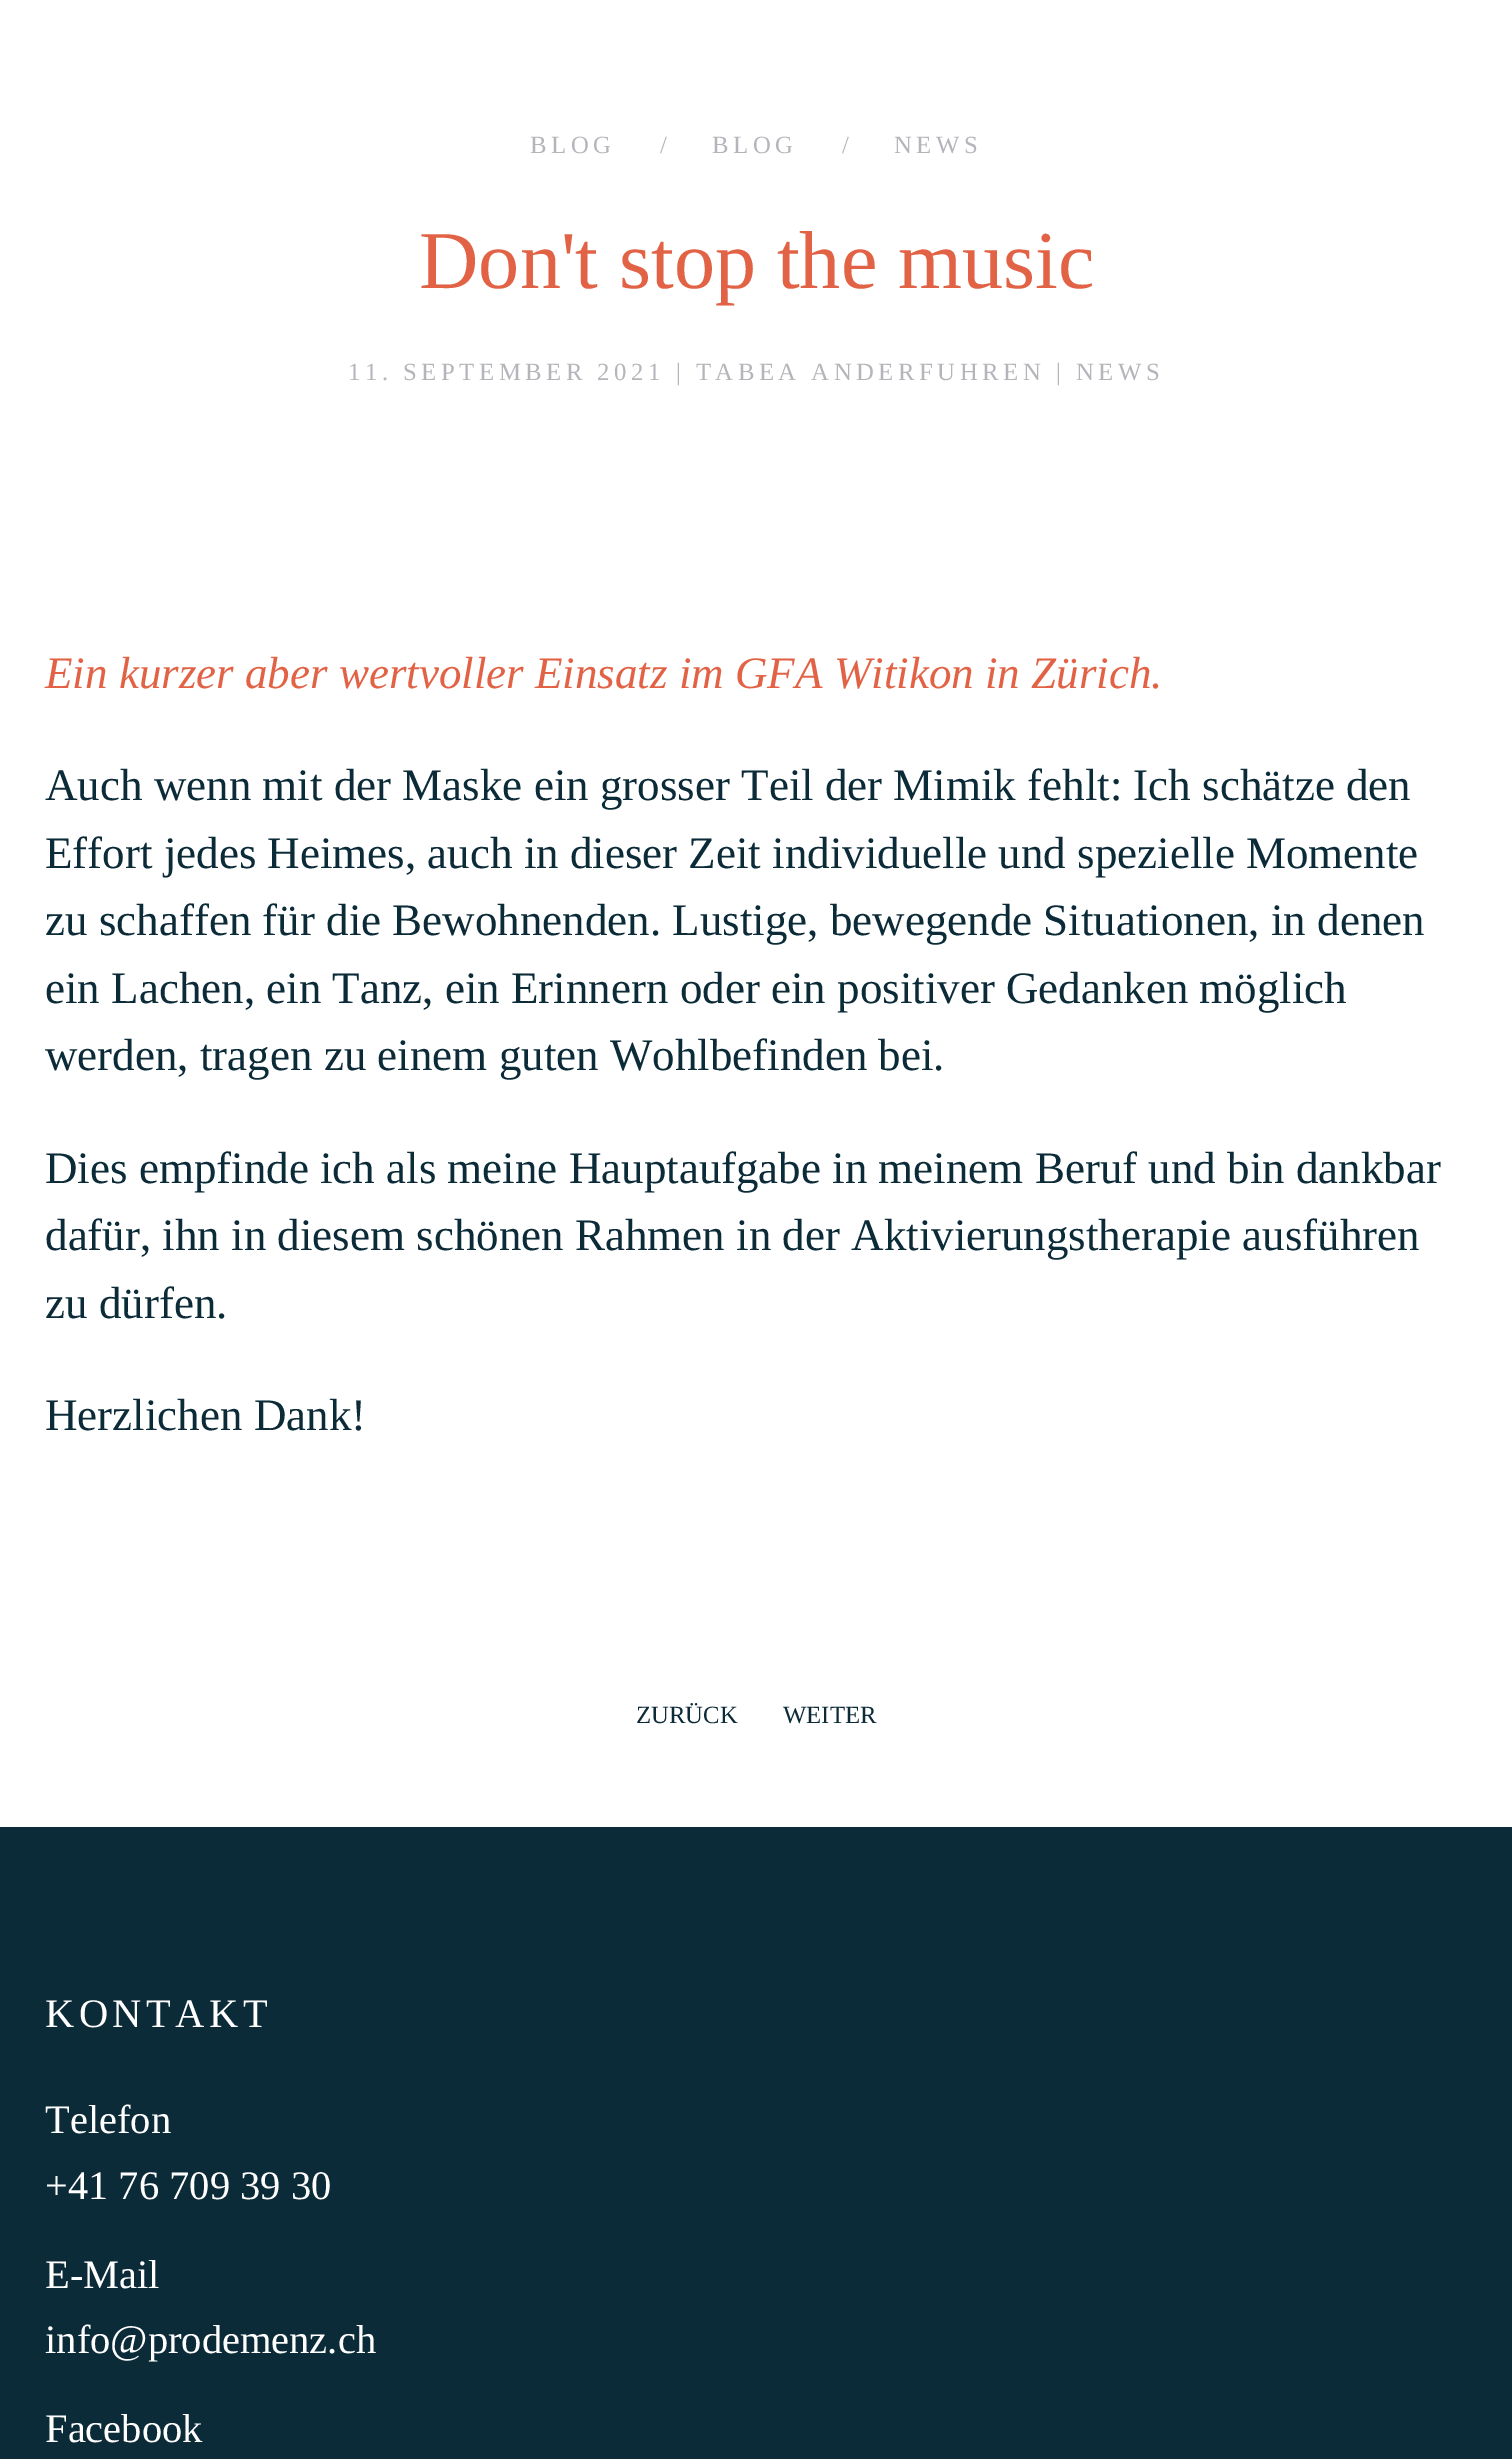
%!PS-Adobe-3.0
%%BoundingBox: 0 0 1512 2459
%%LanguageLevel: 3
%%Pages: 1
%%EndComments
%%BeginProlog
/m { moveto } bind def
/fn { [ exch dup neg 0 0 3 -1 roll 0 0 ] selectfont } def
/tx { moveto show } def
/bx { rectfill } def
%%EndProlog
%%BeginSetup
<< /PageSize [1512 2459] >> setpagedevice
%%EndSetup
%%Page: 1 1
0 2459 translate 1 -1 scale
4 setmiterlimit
1 setgray
0 0 1512 2459 bx
/LiberationSerif-Regular 24.75 fn
0.706 0.71 0.729 setrgbcolor
530 153 m 4.5 0 (BLOG) ashow
(/) 660 153 tx
712 153 m 4.5 0 (BLOG) ashow
(/) 842 153 tx
894 153 m 4.5 0 (NEWS) ashow
/LiberationSerif-Regular 82.25 fn
0.886 0.384 0.275 setrgbcolor
(Don't stop the music) 419 288 tx
/LiberationSerif-Regular 24.75 fn
0.706 0.71 0.729 setrgbcolor
348 380 m 4.5 0 (11. SEPTEMBER 2021 | TABEA ANDERFUHREN | NEWS) ashow
/LiberationSerif-Italic 45 fn
0.886 0.384 0.275 setrgbcolor
(Ein kurzer aber wertvoller Einsatz im GFA Witikon in Zürich.) 45 688 tx
/LiberationSerif-Regular 45 fn
0.047 0.169 0.22 setrgbcolor
(Auch wenn mit der Maske ein grosser Teil der Mimik fehlt: Ich schätze den) 45 800 tx
(Effort jedes Heimes, auch in dieser Zeit individuelle und spezielle Momente) 45 868 tx
(zu schaffen für die Bewohnenden. Lustige, bewegende Situationen, in denen) 45 935 tx
(ein Lachen, ein Tanz, ein Erinnern oder ein positiver Gedanken möglich) 45 1003 tx
(werden, tragen zu einem guten Wohlbefinden bei.) 45 1070 tx
(Dies empfinde ich als meine Hauptaufgabe in meinem Beruf und bin dankbar) 45 1183 tx
(dafür, ihn in diesem schönen Rahmen in der Aktivierungstherapie ausführen) 45 1250 tx
(zu dürfen.) 45 1318 tx
(Herzlichen Dank!) 45 1430 tx
/LiberationSerif-Regular 24.75 fn
(ZURÜCK) 636 1723 tx
(WEITER) 783 1723 tx
0 1827 1512 632 bx
/LiberationSerif-Regular 40.5 fn
1 setgray
45 2027 m 4.5 0 (KONTAKT) ashow
(Telefon) 45 2133 tx
(+41 76 709 39 30) 45 2199 tx
(E-Mail) 45 2288 tx
(info@prodemenz.ch) 45 2353 tx
(Facebook) 45 2442 tx
showpage
%%EOF
